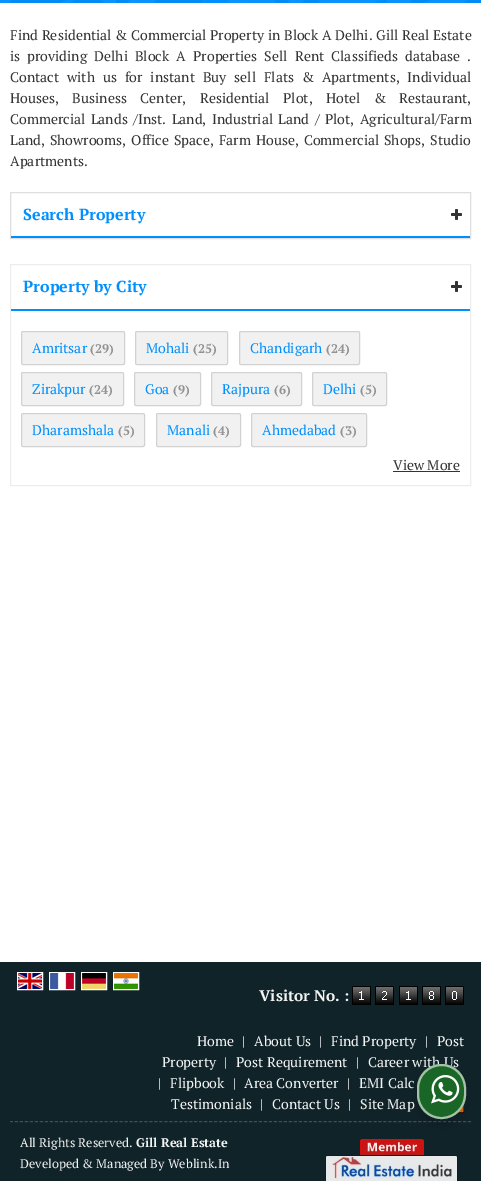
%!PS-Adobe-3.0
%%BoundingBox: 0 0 481 1181
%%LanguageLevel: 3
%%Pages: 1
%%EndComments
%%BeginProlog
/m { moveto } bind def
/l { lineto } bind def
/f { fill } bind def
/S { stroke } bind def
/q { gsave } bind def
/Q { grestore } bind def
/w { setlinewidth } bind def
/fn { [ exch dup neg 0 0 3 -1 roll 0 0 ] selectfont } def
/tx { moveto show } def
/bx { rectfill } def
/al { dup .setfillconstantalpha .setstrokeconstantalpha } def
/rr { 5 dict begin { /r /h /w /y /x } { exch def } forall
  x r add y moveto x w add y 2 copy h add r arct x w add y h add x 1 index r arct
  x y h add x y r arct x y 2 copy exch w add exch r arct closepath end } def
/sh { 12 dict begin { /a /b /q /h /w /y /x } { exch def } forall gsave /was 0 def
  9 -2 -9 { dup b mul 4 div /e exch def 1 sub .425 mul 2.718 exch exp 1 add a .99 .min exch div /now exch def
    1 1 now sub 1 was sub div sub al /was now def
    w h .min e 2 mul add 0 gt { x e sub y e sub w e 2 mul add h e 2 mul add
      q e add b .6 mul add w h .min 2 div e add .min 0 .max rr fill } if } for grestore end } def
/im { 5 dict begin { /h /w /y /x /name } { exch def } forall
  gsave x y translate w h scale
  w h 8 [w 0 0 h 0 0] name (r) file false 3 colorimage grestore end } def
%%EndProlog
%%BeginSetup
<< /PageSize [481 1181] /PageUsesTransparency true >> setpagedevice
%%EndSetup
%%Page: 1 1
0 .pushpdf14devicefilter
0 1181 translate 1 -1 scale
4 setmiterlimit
1 setgray
0 0 481 1181 bx
0 0.565 0.992 setrgbcolor
0 0 481 3 bx
(image0.raw) 0 0 481 3 im
/PTSerif-Regular 14 fn
0.2 setgray
10 40 m 0.25 0 32 (Find Residential & Commercial Property in Block A Delhi. Gill Real Estate) widthshow
(is) 10 61 tx
27 61 m 3.75 0 32 (providing Delhi Block A Properties Sell Rent Classifieds database .) widthshow
10 82 m 4.5 0 32 (Contact with us for instant Buy sell Flats & Apartments, Individual) widthshow
10 103 m 10 0 32 (Houses, Business Center, Residential Plot, Hotel & Restaurant,) widthshow
10 124 m 2 0 32 (Commercial Lands /Inst. Land, Industrial Land / Plot, Agricultural/Farm) widthshow
10 145 m 1.5 0 32 (Land, Showrooms, Office Space, Farm House, Commercial Shops, Studio) widthshow
(Apartments.) 10 166 tx
0.871 setgray
10.5 192.5 460 46 rectstroke
0 0.565 0.992 setrgbcolor
11 236 459 2 bx
/PTSerif-Bold 16 fn
(Search Property) 23 220 tx
(image1.raw) 451 209 11 11 im
0.929 setgray
10.5 264.5 460 221 rectstroke
0 0.565 0.992 setrgbcolor
11 309 459 2 bx
(Property by City) 23 292 tx
(image1.raw) 451 281 11 11 im
0.945 setgray
21.5 331.5 103 33 1.5 rr q f Q
0.824 setgray
S
/PTSerif-Regular 14 fn
0 0.565 0.992 setrgbcolor
(Amritsar) 32 353 tx
/PTSerif-Bold 12.6 fn
0.573 setgray
(\(29\)) 90 353 tx
0.945 setgray
135.5 331.5 92 33 1.5 rr q f Q
0.824 setgray
S
/PTSerif-Regular 14 fn
0 0.565 0.992 setrgbcolor
(Mohali) 146 353 tx
/PTSerif-Bold 12.6 fn
0.573 setgray
(\(25\)) 193 353 tx
0.945 setgray
239.5 331.5 120 33 1.5 rr q f Q
0.824 setgray
S
/PTSerif-Regular 14 fn
0 0.565 0.992 setrgbcolor
(Chandigarh) 250 353 tx
/PTSerif-Bold 12.6 fn
0.573 setgray
(\(24\)) 326 353 tx
0.945 setgray
21.5 372.5 102 33 1.5 rr q f Q
0.824 setgray
S
/PTSerif-Regular 14 fn
0 0.565 0.992 setrgbcolor
(Zirakpur) 32 394 tx
/PTSerif-Bold 12.6 fn
0.573 setgray
(\(24\)) 89 394 tx
0.945 setgray
134.5 372.5 66 33 1.5 rr q f Q
0.824 setgray
S
/PTSerif-Regular 14 fn
0 0.565 0.992 setrgbcolor
(Goa) 145 394 tx
/PTSerif-Bold 12.6 fn
0.573 setgray
(\(9\)) 173 394 tx
0.945 setgray
211.5 372.5 90 33 1.5 rr q f Q
0.824 setgray
S
/PTSerif-Regular 14 fn
0 0.565 0.992 setrgbcolor
(Rajpura) 222 394 tx
/PTSerif-Bold 12.6 fn
0.573 setgray
(\(6\)) 274 394 tx
0.945 setgray
312.5 372.5 74 33 1.5 rr q f Q
0.824 setgray
S
/PTSerif-Regular 14 fn
0 0.565 0.992 setrgbcolor
(Delhi) 323 394 tx
/PTSerif-Bold 12.6 fn
0.573 setgray
(\(5\)) 360 394 tx
0.945 setgray
21.5 413.5 123 33 1.5 rr q f Q
0.824 setgray
S
/PTSerif-Regular 14 fn
0 0.565 0.992 setrgbcolor
(Dharamshala) 32 435 tx
/PTSerif-Bold 12.6 fn
0.573 setgray
(\(5\)) 118 435 tx
0.945 setgray
156.5 413.5 84 33 1.5 rr q f Q
0.824 setgray
S
/PTSerif-Regular 14 fn
0 0.565 0.992 setrgbcolor
(Manali) 167 435 tx
/PTSerif-Bold 12.6 fn
0.573 setgray
(\(4\)) 213 435 tx
0.945 setgray
251.5 413.5 115 33 1.5 rr q f Q
0.824 setgray
S
/PTSerif-Regular 14 fn
0 0.565 0.992 setrgbcolor
(Ahmedabad) 262 435 tx
/PTSerif-Bold 12.6 fn
0.573 setgray
(\(3\)) 340 435 tx
/PTSerif-Regular 14 fn
0.2 setgray
(View More) 393 470 tx
393 471 67 1 bx
0.063 0.137 0.161 setrgbcolor
0 962 481 219 bx
1 setgray
17.5 972.5 25 17 rectstroke
49.5 972.5 25 17 rectstroke
81.5 972.5 25 17 rectstroke
113.5 972.5 25 17 rectstroke
(image2.raw) 18 973 24 16 im
(image3.raw) 50 973 24 16 im
(image4.raw) 82 973 24 16 im
(image5.raw) 114 973 24 16 im
/PTSerif-Bold 15.5 fn
0.953 0.957 0.957 setrgbcolor
(Visitor No. :) 259 1001 tx
(image6.raw) 352 986 19 19 im
(image7.raw) 375 986 19 19 im
(image6.raw) 399 986 19 19 im
(image8.raw) 422 986 19 19 im
(image9.raw) 445 986 19 19 im
/PTSerif-Regular 14 fn
(Home) 197 1046 tx
(|) 242 1046 tx
(About Us) 254 1046 tx
(|) 319 1046 tx
(Find Property) 331 1046 tx
(|) 425 1046 tx
(Post) 437 1046 tx
(Property) 162 1067 tx
(|) 224 1067 tx
(Post Requirement) 236 1067 tx
(|) 356 1067 tx
(Career with Us) 368 1067 tx
(|) 158 1088 tx
(Flipbook) 170 1088 tx
(|) 233 1088 tx
(Area Converter) 244 1088 tx
(|) 347 1088 tx
(EMI Calc) 359 1088 tx
(Testimonials) 171 1109 tx
(|) 260 1109 tx
(Contact Us) 272 1109 tx
(|) 348 1109 tx
(Site Map) 360 1109 tx
(image10.raw) 457 1104 7 9 im
0.251 0.31 0.329 setrgbcolor
[3 1.98] 0 setdash
10 1121.5 m 471 1121.5 l S
/PTSerif-Regular 12.6 fn
0.953 0.957 0.957 setrgbcolor
(All Rights Reserved.) 20 1147 tx
/PTSerif-Bold 12.6 fn
(Gill Real Estate) 136 1147 tx
/PTSerif-Regular 12.6 fn
(Developed & Managed By Weblink.In) 20 1168 tx
(image11.raw) 325 1139 133 42 im
0 setgray
415 1068 53 59 26.5 4 0.14 sh
0.098 0.4 0.149 setrgbcolor
417 1064 49 55 24.5 rr f
0.6 al
1 setgray
2 w
[] 0 setdash
418 1065 47 53 23.5 rr S
1 al
(image12.raw) 431 1075 29 29 im
.poppdf14devicefilter showpage
%%EOF
